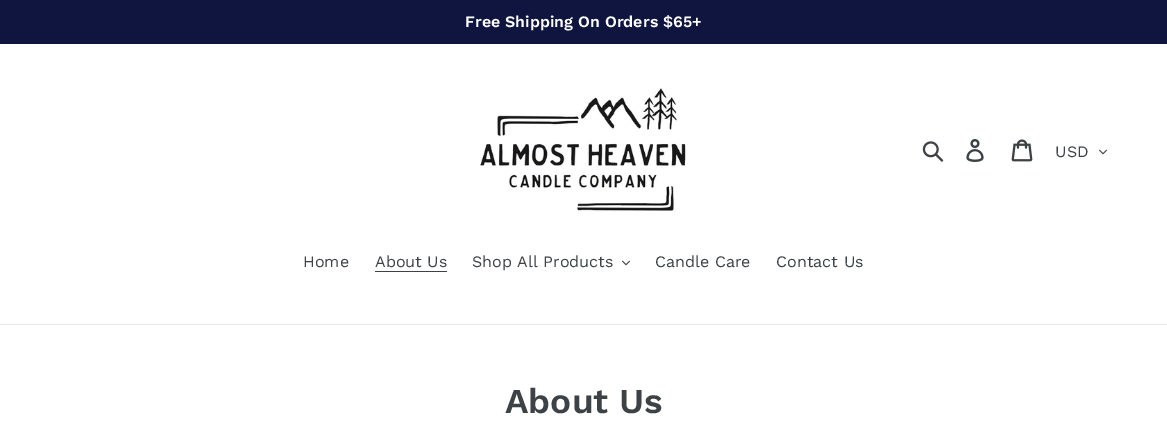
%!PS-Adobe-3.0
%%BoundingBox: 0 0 1167 427
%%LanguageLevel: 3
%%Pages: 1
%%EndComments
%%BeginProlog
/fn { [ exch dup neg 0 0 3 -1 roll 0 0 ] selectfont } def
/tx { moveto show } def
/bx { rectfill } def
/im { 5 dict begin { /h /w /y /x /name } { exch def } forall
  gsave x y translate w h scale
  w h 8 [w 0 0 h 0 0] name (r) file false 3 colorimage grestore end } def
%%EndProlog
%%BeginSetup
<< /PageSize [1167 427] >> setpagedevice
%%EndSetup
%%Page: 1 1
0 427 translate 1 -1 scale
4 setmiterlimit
1 setgray
0 0 1167 427 bx
0.063 0.082 0.251 setrgbcolor
0 0 1167 44 bx
/WorkSans-SemiBold 16 fn
1 setgray
(Free Shipping On Orders $65+) 465 27 tx
(image0.raw) 480 88 206 124 im
(image1.raw) 922 141 22 21 im
(image2.raw) 966 139 18 23 im
(image3.raw) 1011 139 22 23 im
/WorkSans-Regular 16 fn
0.239 0.259 0.275 setrgbcolor
(USD) 1055 157 tx
(image4.raw) 1099 149 8 6 im
0.91 0.914 0.922 setrgbcolor
0 324 1167 1 bx
0.239 0.259 0.275 setrgbcolor
(Home) 303 267 tx
(About Us) 375 267 tx
375 271 72 1 bx
(Shop All Products) 472 267 tx
(image4.raw) 622 260 8 6 im
(Candle Care) 655 267 tx
(Contact Us) 776 267 tx
/WorkSans-SemiBold 35 fn
(About Us) 505 413 tx
showpage
%%EOF
